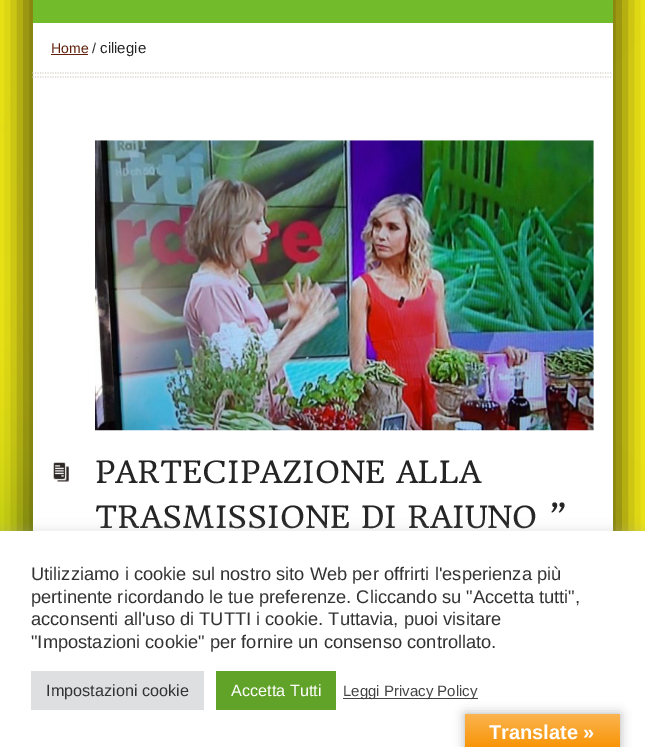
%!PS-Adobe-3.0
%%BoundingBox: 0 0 645 747
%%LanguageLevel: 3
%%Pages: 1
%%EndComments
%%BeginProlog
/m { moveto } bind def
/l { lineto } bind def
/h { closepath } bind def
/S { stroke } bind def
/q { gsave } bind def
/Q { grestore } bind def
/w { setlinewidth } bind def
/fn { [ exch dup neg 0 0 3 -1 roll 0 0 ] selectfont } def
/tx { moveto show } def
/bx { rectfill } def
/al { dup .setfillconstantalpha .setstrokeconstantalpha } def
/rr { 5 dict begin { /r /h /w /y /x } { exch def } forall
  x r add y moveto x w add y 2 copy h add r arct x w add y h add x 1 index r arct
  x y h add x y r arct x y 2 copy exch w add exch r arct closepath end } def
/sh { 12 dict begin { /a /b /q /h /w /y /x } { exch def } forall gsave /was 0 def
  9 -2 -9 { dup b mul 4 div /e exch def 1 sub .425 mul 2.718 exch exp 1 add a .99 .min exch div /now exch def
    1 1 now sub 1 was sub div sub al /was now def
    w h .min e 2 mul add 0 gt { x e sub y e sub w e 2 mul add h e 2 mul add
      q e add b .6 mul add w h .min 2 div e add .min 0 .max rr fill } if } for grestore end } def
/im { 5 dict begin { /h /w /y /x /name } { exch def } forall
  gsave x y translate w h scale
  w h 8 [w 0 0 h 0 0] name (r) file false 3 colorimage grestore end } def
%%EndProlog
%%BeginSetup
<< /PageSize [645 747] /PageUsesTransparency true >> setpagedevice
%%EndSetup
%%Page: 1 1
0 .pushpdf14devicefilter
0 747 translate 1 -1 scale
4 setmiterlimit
1 setgray
0 0 645 747 bx
(image0.raw) 0 0 645 531 im
0.004 0.012 0.035 setrgbcolor
20 -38 250 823 0 12.5 0.5 sh
375 -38 250 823 0 12.5 0.5 sh
1 setgray
33 23 580 508 bx
0.447 0.733 0.165 setrgbcolor
33 0 580 23 bx
/LiberationSans-Regular 14 fn
0.38 0.125 0.047 setrgbcolor
(Home) 51 53 tx
51 54 37 1 bx
0.145 setgray
(/) 92 53 tx
/LiberationSans-Regular 15 fn
(ciliegie) 100 53 tx
0.855 0.843 0.8 setrgbcolor
1.2 w
[1.25 1.25] 0 setdash
32.5 73 m 612.5 73 l S
32.5 77 m 612.5 77 l S
(image1.raw) 95 140 499 291 im
(image2.raw) 53 462 16 20 im
/HeadlandOne-Regular 30 fn
0.145 setgray
(PARTECIPAZIONE ALLA) 95 483 tx
(TRASMISSIONE DI RAIUNO ”) 95 528 tx
0.675 0.671 0.671 setrgbcolor
0 530 645 216 0 6 0.3 sh
1 setgray
0 531 645 216 bx
/LiberationSans-Regular 18.3 fn
0.2 setgray
(Utilizziamo i cookie sul nostro sito Web per offrirti l'esperienza più) 31 580 tx
(pertinente ricordando le tue preferenze. Cliccando su "Accetta tutti",) 31 603 tx
(acconsenti all'uso di TUTTI i cookie. Tuttavia, puoi visitare) 31 625 tx
("Impostazioni cookie" per fornire un consenso controllato.) 31 648 tx
0.871 0.875 0.878 setrgbcolor
31 671 173 39 bx
/LiberationSans-Regular 16.25 fn
0.2 setgray
(Impostazioni cookie) 46 696 tx
0.38 0.635 0.161 setrgbcolor
216 671 120 39 bx
1 setgray
(Accetta Tutti) 231 696 tx
0.267 setgray
343 698 135 1 bx
/LiberationSans-Regular 15 fn
(Leggi Privacy Policy) 343 696 tx
0 setgray
465 714 155 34 0 5.5 0.3 sh
q 465 714 m 620 714 l 620 747 l 465 747 l h clip newpath
<< /ShadingType 2 /ColorSpace /DeviceRGB /Coords [543 714 543 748] /Extend [true true] /Function << /FunctionType 2 /Domain [0 1] /C0 [0.984 0.706 0.314] /C1 [0.973 0.58 0.024] /N 1 >> >> shfill Q
/LiberationSans-Bold 20 fn
1 setgray
(Translate ») 489 739 tx
.poppdf14devicefilter showpage
%%EOF
